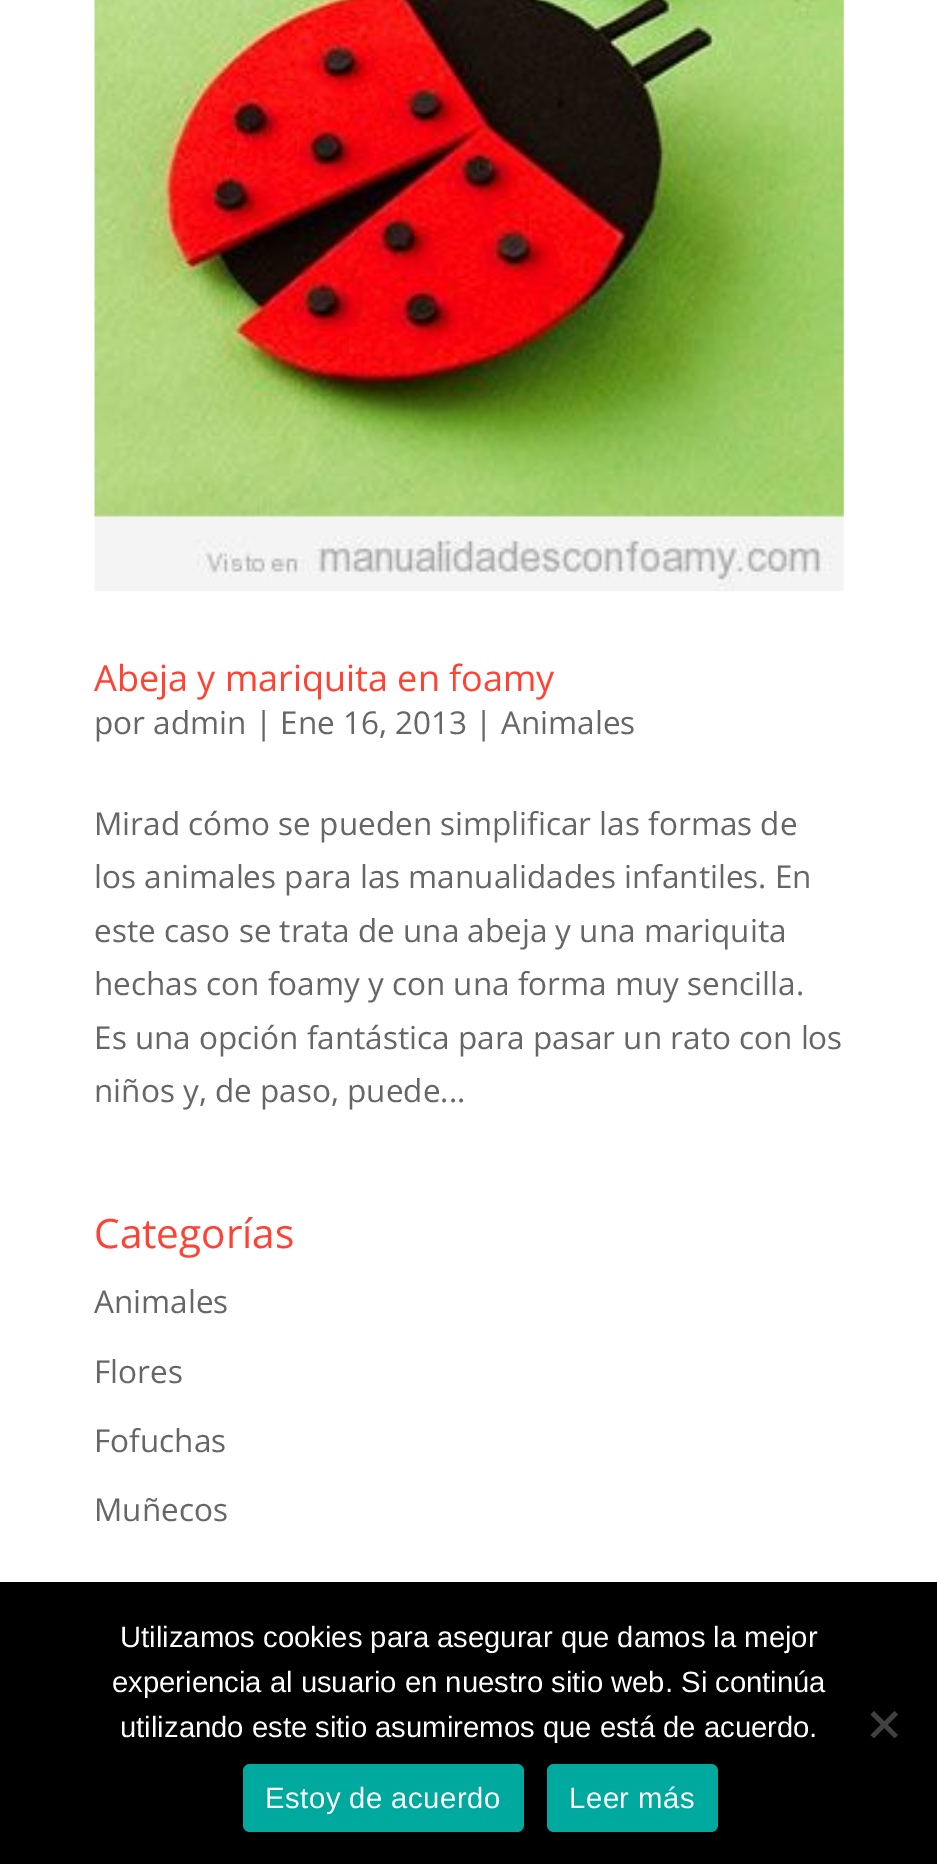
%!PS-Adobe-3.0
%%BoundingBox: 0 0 937 1864
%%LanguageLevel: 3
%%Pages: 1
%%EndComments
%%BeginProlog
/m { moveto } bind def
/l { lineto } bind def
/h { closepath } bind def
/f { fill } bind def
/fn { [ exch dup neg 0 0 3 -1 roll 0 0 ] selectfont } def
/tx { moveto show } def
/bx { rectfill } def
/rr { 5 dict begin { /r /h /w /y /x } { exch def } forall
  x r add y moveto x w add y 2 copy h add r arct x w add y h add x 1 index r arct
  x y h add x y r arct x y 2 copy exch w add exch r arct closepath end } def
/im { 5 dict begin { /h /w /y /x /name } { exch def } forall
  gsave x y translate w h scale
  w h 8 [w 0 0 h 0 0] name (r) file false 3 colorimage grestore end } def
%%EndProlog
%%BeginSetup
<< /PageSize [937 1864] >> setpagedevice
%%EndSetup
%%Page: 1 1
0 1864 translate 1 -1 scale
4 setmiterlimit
1 setgray
0 0 937 1864 bx
(image0.raw) 94 0 750 592 im
/OpenSans-Regular 36 fn
1 0.259 0.2 setrgbcolor
(Abeja y mariquita en foamy) 94 691 tx
/OpenSans-Regular 31.5 fn
0.4 setgray
(por admin | Ene 16, 2013 | Animales) 94 734 tx
(Mirad cómo se pueden simplificar las formas de) 94 835 tx
(los animales para las manualidades infantiles. En) 94 888 tx
(este caso se trata de una abeja y una mariquita) 94 942 tx
(hechas con foamy y con una forma muy sencilla.) 94 995 tx
(Es una opción fantástica para pasar un rato con los) 94 1049 tx
(niños y, de paso, puede...) 94 1102 tx
/OpenSans-Regular 40.5 fn
1 0.259 0.2 setrgbcolor
(Categorías) 94 1248 tx
/OpenSans-Regular 31.5 fn
0.4 setgray
(Animales) 94 1313 tx
(Flores) 94 1383 tx
(Fofuchas) 94 1452 tx
(Muñecos) 94 1521 tx
0 setgray
0 1582 937 282 bx
/LiberationSans-Regular 29.25 fn
1 setgray
(Utilizamos cookies para asegurar que damos la mejor) 120 1647 tx
(experiencia al usuario en nuestro sitio web. Si continúa) 112 1692 tx
(utilizando este sitio asumiremos que está de acuerdo.) 120 1737 tx
0.251 setgray
894.5 1711 m 898 1714.5 l 874 1738 l 870.5 1735 l h f
870.5 1714.5 m 874 1711 l 898 1735 l 894.5 1738 l h f
0 0.663 0.616 setrgbcolor
243 1764 281 68 7 rr f
1 setgray
265 1808 m 0.5 0 (Estoy de acuerdo) ashow
0 0.663 0.616 setrgbcolor
547 1764 171 68 7 rr f
1 setgray
569 1808 m 0.5 0 (Leer más) ashow
showpage
%%EOF
